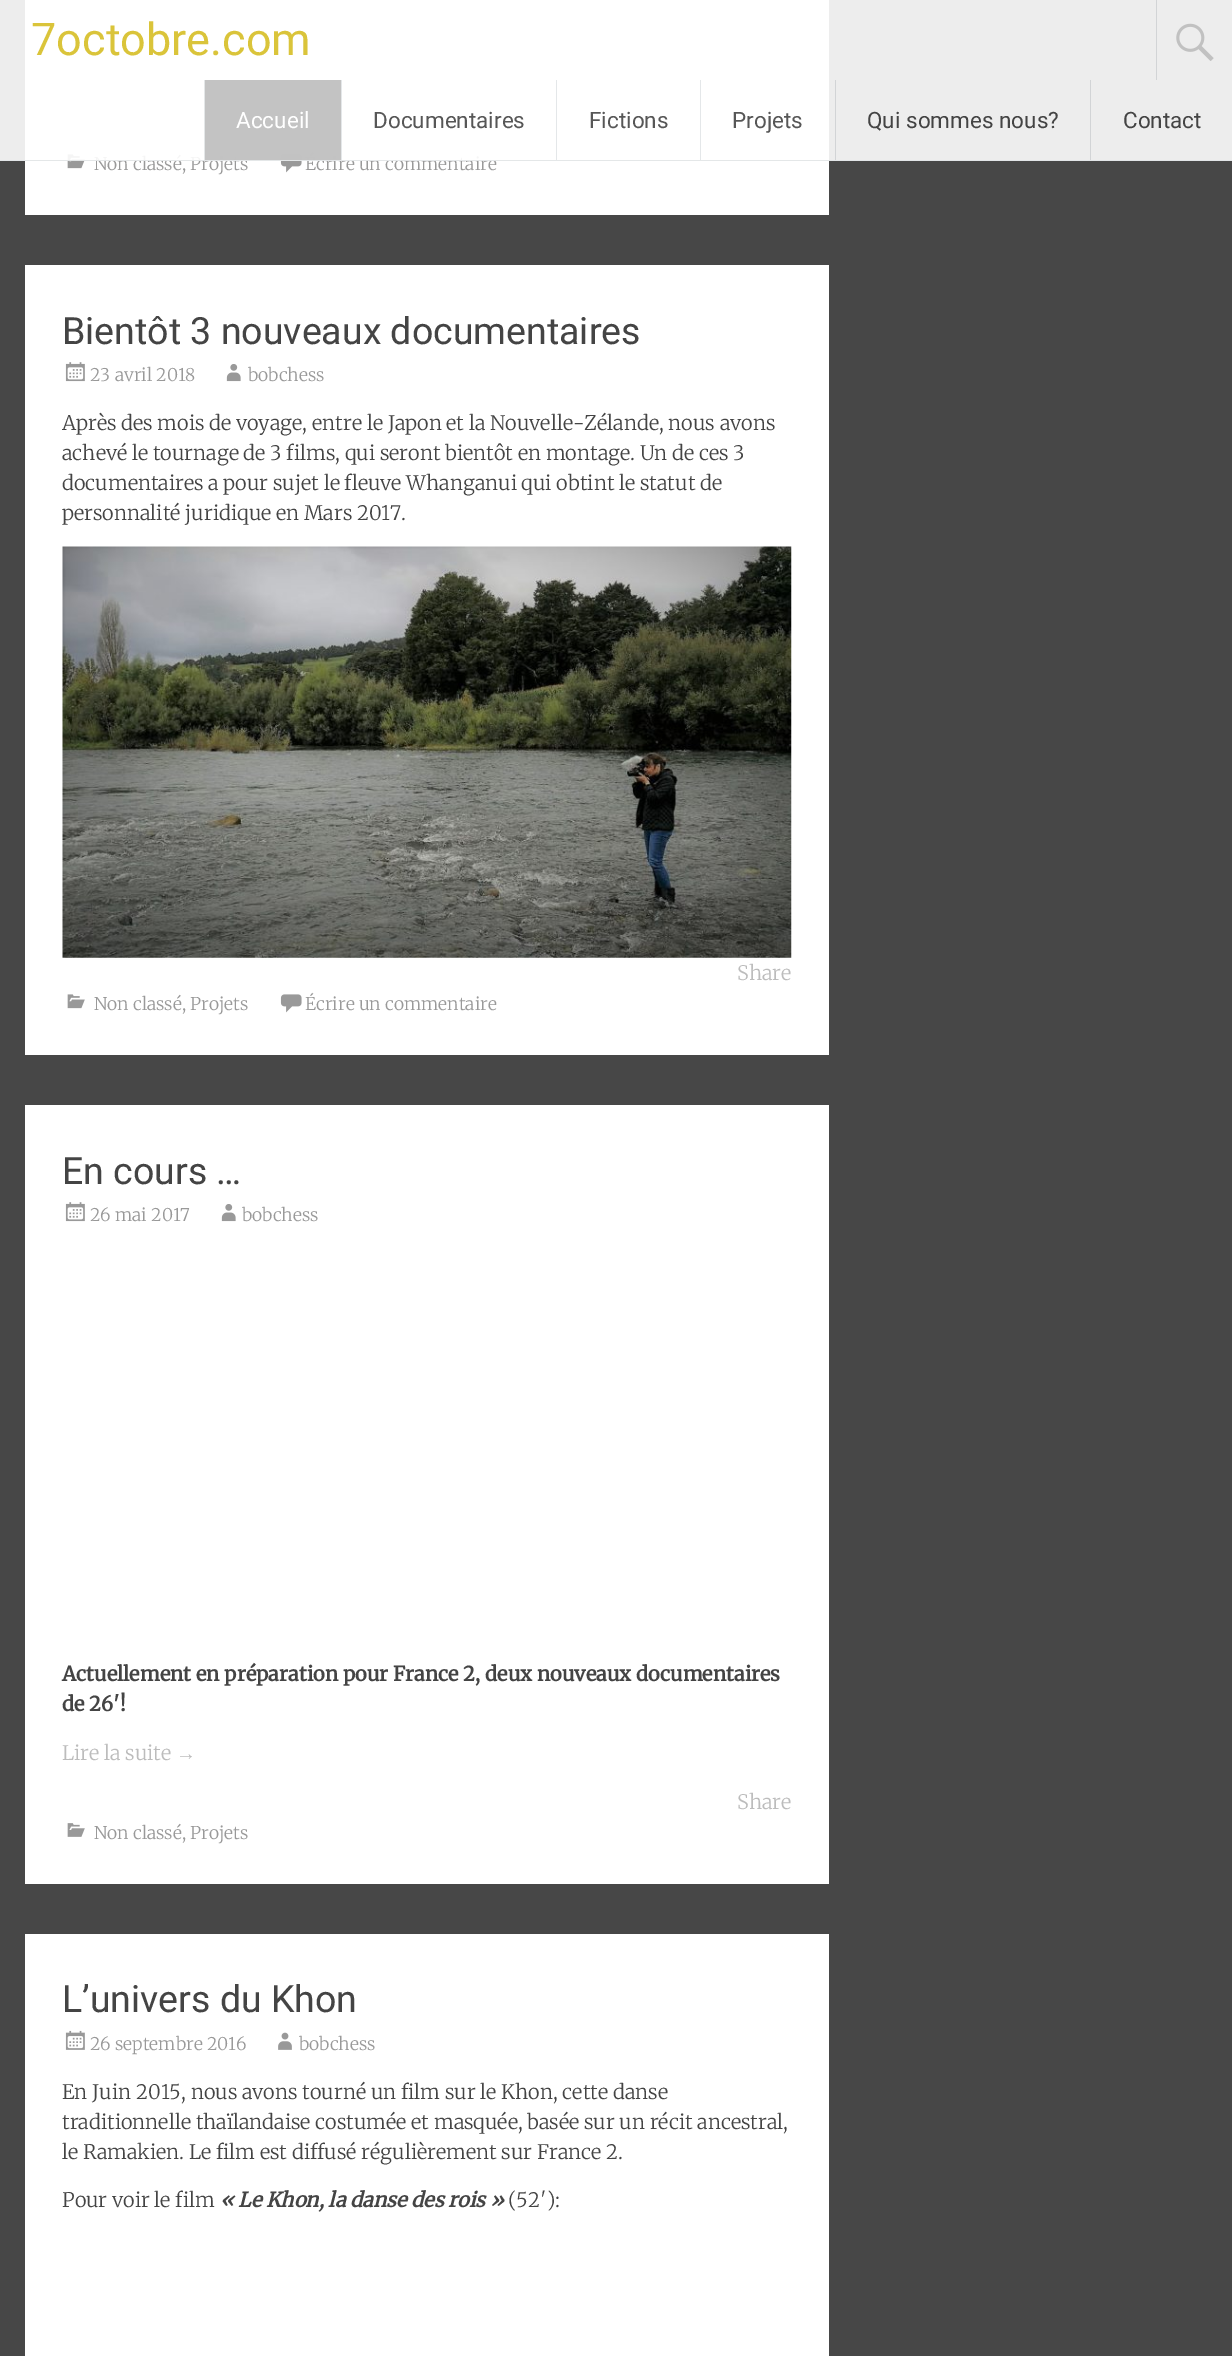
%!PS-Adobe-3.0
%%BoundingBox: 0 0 1232 2356
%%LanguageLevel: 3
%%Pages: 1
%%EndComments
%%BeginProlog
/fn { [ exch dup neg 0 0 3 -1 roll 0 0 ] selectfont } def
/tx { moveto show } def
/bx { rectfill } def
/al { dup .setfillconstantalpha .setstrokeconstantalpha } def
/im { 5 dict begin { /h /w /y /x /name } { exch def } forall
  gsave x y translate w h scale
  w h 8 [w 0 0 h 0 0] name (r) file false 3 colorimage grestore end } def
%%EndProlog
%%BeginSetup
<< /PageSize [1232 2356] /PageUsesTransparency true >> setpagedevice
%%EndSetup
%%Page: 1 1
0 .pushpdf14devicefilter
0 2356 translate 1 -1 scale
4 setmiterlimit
0.278 setgray
0 0 1232 2356 bx
1 setgray
25 0 804 215 bx
(image1.raw) 67 154 18 15 im
/Merriweather-Light 17.5 fn
0.6 setgray
(Non classé, Projets) 94 170 tx
(image2.raw) 280 154 22 19 im
(Écrire un commentaire) 305 170 tx
0.9 al
1 setgray
0 0 1232 161 bx
0.882 0.894 0.902 setrgbcolor
0 160 1232 1 bx
/Roboto-Regular 45 fn
1 al
0.855 0.769 0.227 setrgbcolor
(7octobre.com) 31 55 tx
0.824 0.831 0.839 setrgbcolor
1156 0 1 80 bx
(image0.raw) 1176 23 38 38 im
0.9 al
0.882 0.894 0.902 setrgbcolor
204 80 1 80 bx
0.737 setgray
205 80 136 80 bx
/Roboto-Regular 22.5 fn
1 al
1 setgray
(Accueil) 236 128 tx
0.894 0.906 0.914 setrgbcolor
341 80 1 80 bx
0.341 setgray
(Documentaires) 373 128 tx
0.894 0.906 0.914 setrgbcolor
556 80 1 80 bx
0.341 setgray
(Fictions) 589 128 tx
0.894 0.906 0.914 setrgbcolor
700 80 1 80 bx
0.341 setgray
(Projets) 732 128 tx
0.824 0.831 0.839 setrgbcolor
835 80 1 80 bx
0.267 setgray
(Qui sommes nous?) 867 128 tx
0.824 0.831 0.839 setrgbcolor
1090 80 1 80 bx
0.267 setgray
(Contact) 1123 128 tx
1 setgray
25 265 804 790 bx
/Roboto-Regular 37.5 fn
0.267 setgray
(Bientôt 3 nouveaux documentaires) 62 344 tx
(image3.raw) 65 362 20 20 im
/Merriweather-Light 17.5 fn
0.6 setgray
(23 avril 2018) 90 381 tx
(image4.raw) 226 364 15 18 im
(bobchess) 248 381 tx
/Merriweather-Light 20 fn
0.267 setgray
(Après des mois de voyage, entre le Japon et la Nouvelle-Zélande, nous avons) 62 430 tx
(achevé le tournage de 3 films, qui seront bientôt en montage. Un de ces 3) 62 460 tx
(documentaires a pour sujet le fleuve Whanganui qui obtint le statut de) 62 490 tx
(personnalité juridique en Mars 2017.) 62 520 tx
(image5.raw) 62 546 730 412 im
0.737 setgray
(Share) 737 980 tx
(image1.raw) 67 994 18 15 im
/Merriweather-Light 17.5 fn
0.6 setgray
(Non classé, Projets) 94 1010 tx
(image2.raw) 280 994 22 19 im
(Écrire un commentaire) 305 1010 tx
1 setgray
25 1105 804 779 bx
/Roboto-Regular 37.5 fn
0.267 setgray
(En cours …) 62 1184 tx
(image3.raw) 65 1202 20 20 im
/Merriweather-Light 17.5 fn
0.6 setgray
(26 mai 2017) 90 1221 tx
(image4.raw) 221 1204 15 18 im
(bobchess) 242 1221 tx
/Merriweather-Bold 20 fn
0.267 setgray
(Actuellement en préparation pour France 2, deux nouveaux documentaires) 62 1681 tx
(de 26′!) 62 1711 tx
/Merriweather-Light 20 fn
0.737 setgray
(Lire la suite) 62 1760 tx
/LiberationSerif-Regular 20 fn
(→) 176 1760 tx
/Merriweather-Light 20 fn
(Share) 737 1809 tx
(image6.raw) 67 1823 18 14 im
/Merriweather-Light 17.5 fn
0.6 setgray
(Non classé, Projets) 94 1839 tx
1 setgray
25 1934 804 422 bx
/Roboto-Regular 37.5 fn
0.267 setgray
(L’univers du Khon) 62 2012 tx
(image7.raw) 65 2030 20 20 im
/Merriweather-Light 17.5 fn
0.6 setgray
(26 septembre 2016) 90 2050 tx
(image8.raw) 278 2032 14 18 im
(bobchess) 299 2050 tx
/Merriweather-Light 20 fn
0.267 setgray
(En Juin 2015, nous avons tourné un film sur le Khon, cette danse) 62 2099 tx
(traditionnelle thaïlandaise costumée et masquée, basée sur un récit ancestral,) 62 2129 tx
(le Ramakien. Le film est diffusé régulièrement sur France 2.) 62 2159 tx
(Pour voir le film) 62 2207 tx
/Merriweather-BoldItalic 20 fn
(« Le Khon, la danse des rois ») 220 2207 tx
/Merriweather-Light 20 fn
(\(52′\):) 508 2207 tx
.poppdf14devicefilter showpage
%%EOF
